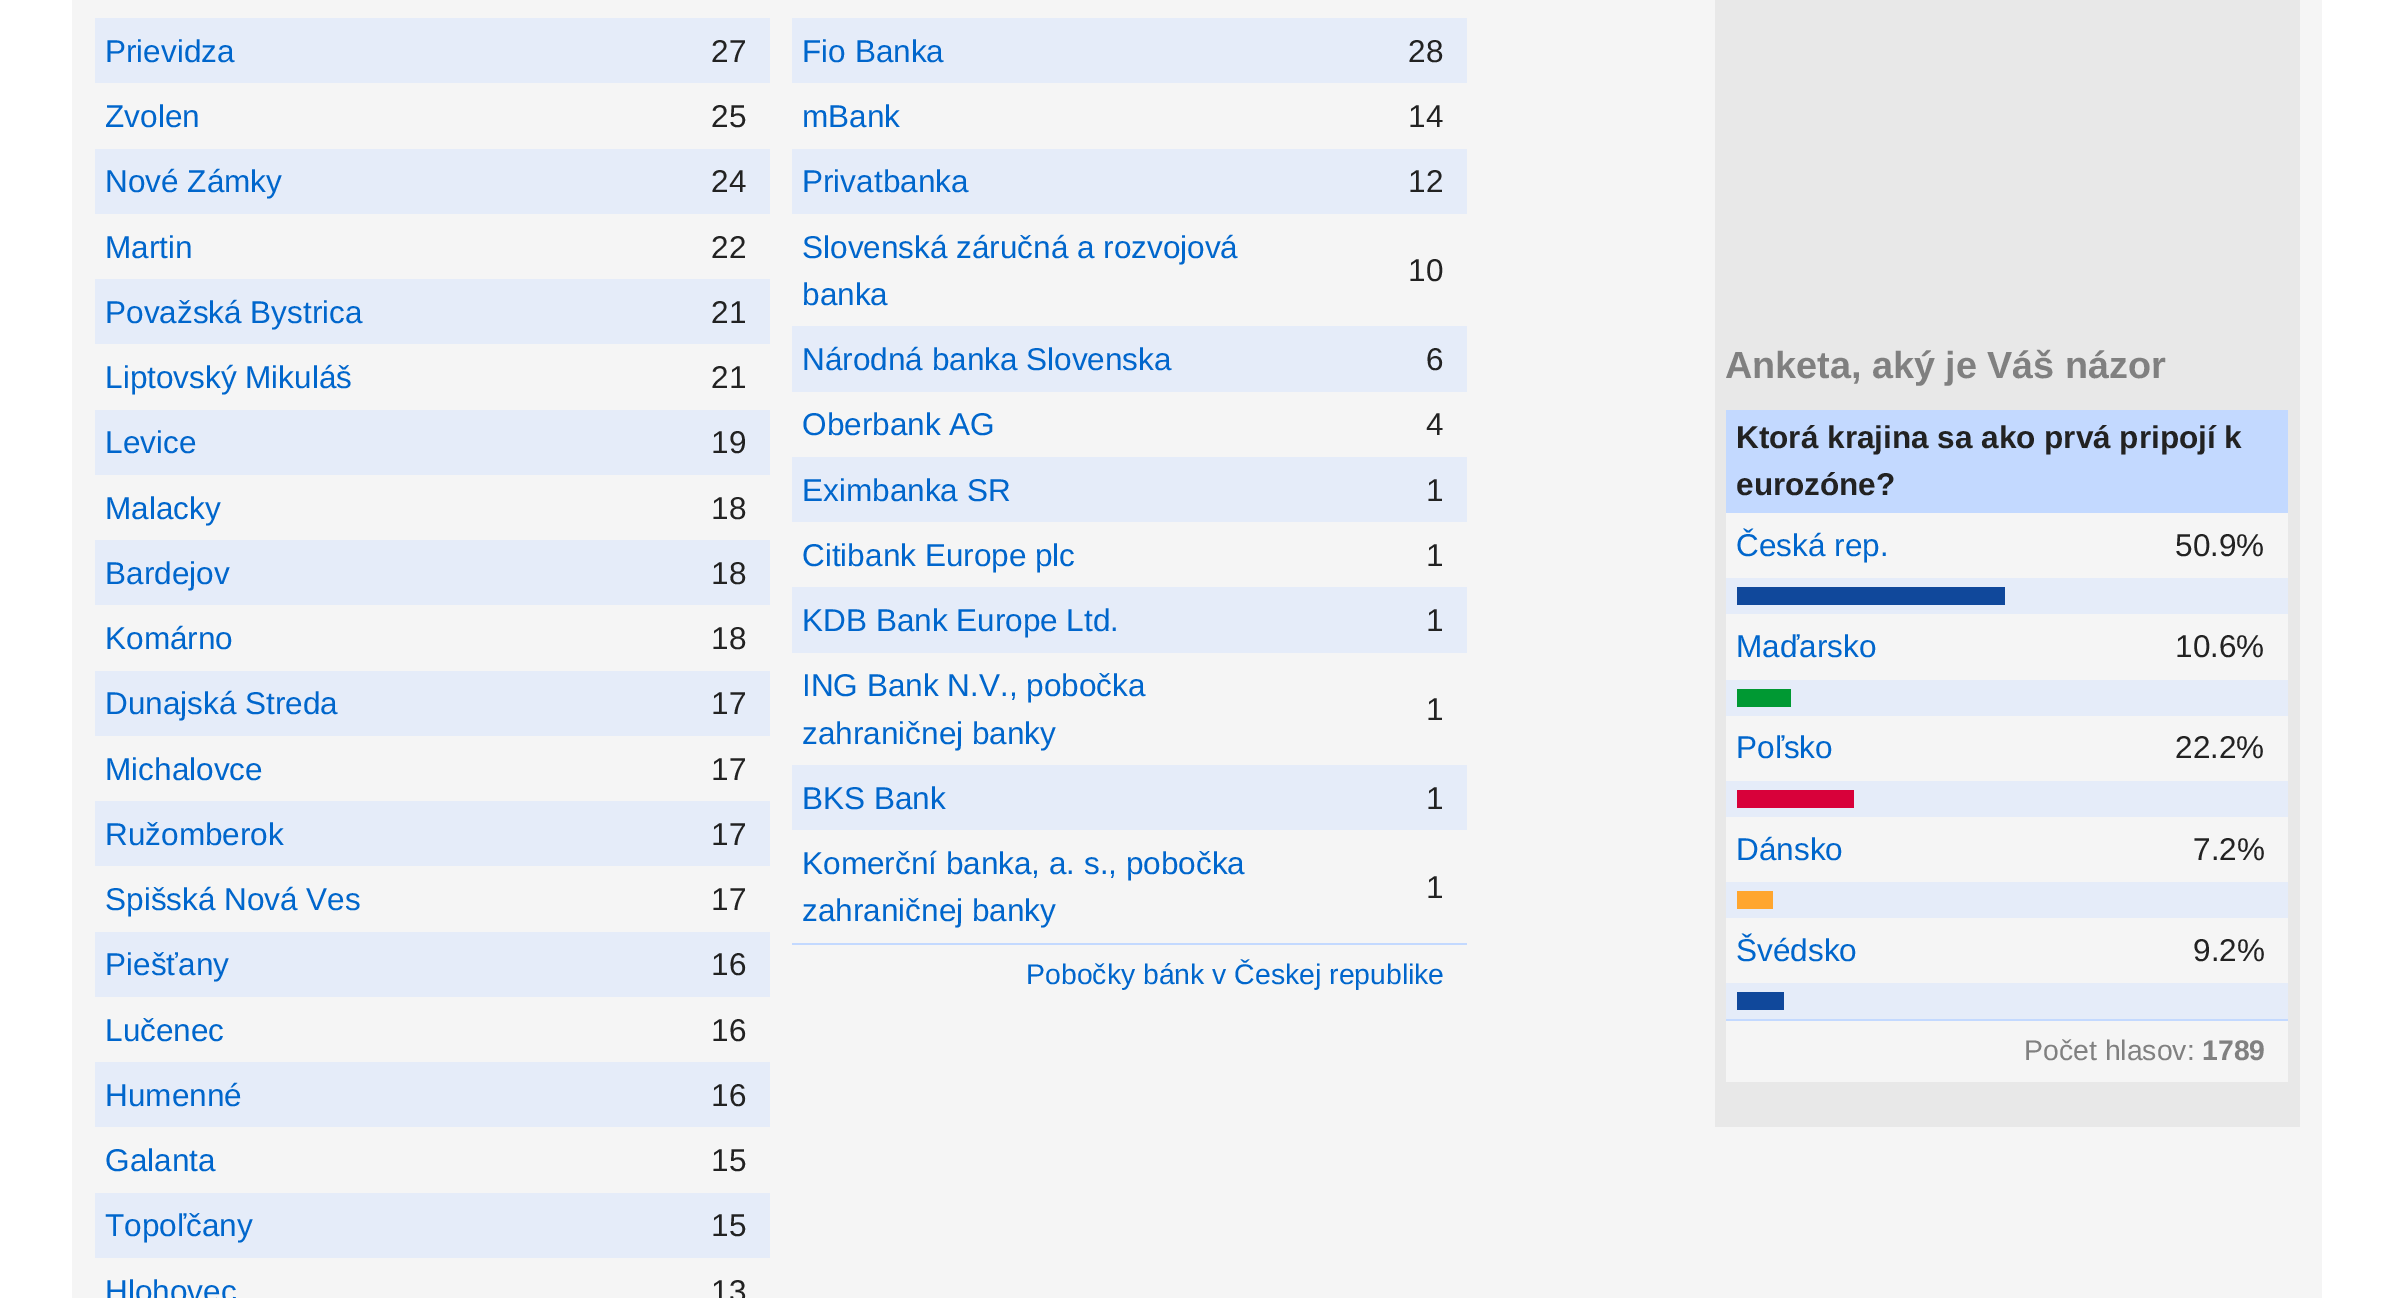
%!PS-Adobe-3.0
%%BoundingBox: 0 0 2391 1298
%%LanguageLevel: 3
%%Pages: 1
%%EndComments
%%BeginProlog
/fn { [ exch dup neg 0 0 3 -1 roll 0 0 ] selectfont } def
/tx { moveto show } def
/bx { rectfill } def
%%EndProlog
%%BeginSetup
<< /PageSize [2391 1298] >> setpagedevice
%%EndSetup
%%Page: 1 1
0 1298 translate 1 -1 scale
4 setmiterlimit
1 setgray
0 0 2391 1298 bx
0.961 setgray
72 0 2250 1298 bx
0.898 0.925 0.976 setrgbcolor
95 18 675 65 bx
/LiberationSans-Regular 31.5 fn
0 0.4 0.8 setrgbcolor
(Prievidza) 105 62 tx
0.133 setgray
(27) 711 62 tx
0 0.4 0.8 setrgbcolor
(Zvolen) 105 127 tx
0.133 setgray
(25) 711 127 tx
0.898 0.925 0.976 setrgbcolor
95 149 675 65 bx
0 0.4 0.8 setrgbcolor
(Nové Zámky) 105 192 tx
0.133 setgray
(24) 711 192 tx
0 0.4 0.8 setrgbcolor
(Martin) 105 258 tx
0.133 setgray
(22) 711 258 tx
0.898 0.925 0.976 setrgbcolor
95 279 675 65 bx
0 0.4 0.8 setrgbcolor
(Považská Bystrica) 105 323 tx
0.133 setgray
(21) 711 323 tx
0 0.4 0.8 setrgbcolor
(Liptovský Mikuláš) 105 388 tx
0.133 setgray
(21) 711 388 tx
0.898 0.925 0.976 setrgbcolor
95 410 675 65 bx
0 0.4 0.8 setrgbcolor
(Levice) 105 453 tx
0.133 setgray
(19) 711 453 tx
0 0.4 0.8 setrgbcolor
(Malacky) 105 519 tx
0.133 setgray
(18) 711 519 tx
0.898 0.925 0.976 setrgbcolor
95 540 675 65 bx
0 0.4 0.8 setrgbcolor
(Bardejov) 105 584 tx
0.133 setgray
(18) 711 584 tx
0 0.4 0.8 setrgbcolor
(Komárno) 105 649 tx
0.133 setgray
(18) 711 649 tx
0.898 0.925 0.976 setrgbcolor
95 671 675 65 bx
0 0.4 0.8 setrgbcolor
(Dunajská Streda) 105 714 tx
0.133 setgray
(17) 711 714 tx
0 0.4 0.8 setrgbcolor
(Michalovce) 105 780 tx
0.133 setgray
(17) 711 780 tx
0.898 0.925 0.976 setrgbcolor
95 801 675 65 bx
0 0.4 0.8 setrgbcolor
(Ružomberok) 105 845 tx
0.133 setgray
(17) 711 845 tx
0 0.4 0.8 setrgbcolor
(Spišská Nová Ves) 105 910 tx
0.133 setgray
(17) 711 910 tx
0.898 0.925 0.976 setrgbcolor
95 932 675 65 bx
0 0.4 0.8 setrgbcolor
(Piešťany) 105 975 tx
0.133 setgray
(16) 711 975 tx
0 0.4 0.8 setrgbcolor
(Lučenec) 105 1041 tx
0.133 setgray
(16) 711 1041 tx
0.898 0.925 0.976 setrgbcolor
95 1062 675 65 bx
0 0.4 0.8 setrgbcolor
(Humenné) 105 1106 tx
0.133 setgray
(16) 711 1106 tx
0 0.4 0.8 setrgbcolor
(Galanta) 105 1171 tx
0.133 setgray
(15) 711 1171 tx
0.898 0.925 0.976 setrgbcolor
95 1193 675 65 bx
0 0.4 0.8 setrgbcolor
(Topoľčany) 105 1236 tx
0.133 setgray
(15) 711 1236 tx
0 0.4 0.8 setrgbcolor
(Hlohovec) 105 1302 tx
0.133 setgray
(13) 711 1302 tx
0.898 0.925 0.976 setrgbcolor
792 18 675 65 bx
0 0.4 0.8 setrgbcolor
(Fio Banka) 802 62 tx
0.133 setgray
(28) 1408 62 tx
0 0.4 0.8 setrgbcolor
(mBank) 802 127 tx
0.133 setgray
(14) 1408 127 tx
0.898 0.925 0.976 setrgbcolor
792 149 675 65 bx
0 0.4 0.8 setrgbcolor
(Privatbanka) 802 192 tx
0.133 setgray
(12) 1408 192 tx
0 0.4 0.8 setrgbcolor
(Slovenská záručná a rozvojová) 802 258 tx
(banka) 802 305 tx
0.133 setgray
(10) 1408 281 tx
0.898 0.925 0.976 setrgbcolor
792 326 675 66 bx
0 0.4 0.8 setrgbcolor
(Národná banka Slovenska) 802 370 tx
0.133 setgray
(6) 1426 370 tx
0 0.4 0.8 setrgbcolor
(Oberbank AG) 802 435 tx
0.133 setgray
(4) 1426 435 tx
0.898 0.925 0.976 setrgbcolor
792 457 675 65 bx
0 0.4 0.8 setrgbcolor
(Eximbanka SR) 802 501 tx
0.133 setgray
(1) 1426 501 tx
0 0.4 0.8 setrgbcolor
(Citibank Europe plc) 802 566 tx
0.133 setgray
(1) 1426 566 tx
0.898 0.925 0.976 setrgbcolor
792 587 675 66 bx
0 0.4 0.8 setrgbcolor
(KDB Bank Europe Ltd.) 802 631 tx
0.133 setgray
(1) 1426 631 tx
0 0.4 0.8 setrgbcolor
(ING Bank N.V., pobočka) 802 696 tx
(zahraničnej banky) 802 744 tx
0.133 setgray
(1) 1426 720 tx
0.898 0.925 0.976 setrgbcolor
792 765 675 65 bx
0 0.4 0.8 setrgbcolor
(BKS Bank) 802 809 tx
0.133 setgray
(1) 1426 809 tx
0 0.4 0.8 setrgbcolor
(Komerční banka, a. s., pobočka) 802 874 tx
(zahraničnej banky) 802 921 tx
0.133 setgray
(1) 1426 898 tx
0.765 0.851 1 setrgbcolor
792 943 675 2 bx
/LiberationSans-Regular 28.4 fn
0 0.4 0.8 setrgbcolor
(Pobočky bánk v Českej republike) 1026 984 tx
0.91 setgray
1715 0 585 1127 bx
/LiberationSans-Bold 37.75 fn
0.502 setgray
(Anketa, aký je Váš názor) 1725 378 tx
0.961 setgray
1726 513 562 569 bx
0.765 0.851 1 setrgbcolor
1726 410 562 103 bx
/LiberationSans-Bold 31.5 fn
0.133 setgray
(Ktorá krajina sa ako prvá pripojí k) 1736 448 tx
(eurozóne?) 1736 495 tx
/LiberationSans-Regular 31.5 fn
0 0.4 0.8 setrgbcolor
(Česká rep.) 1736 556 tx
0.133 setgray
(50.9%) 2175 556 tx
0.898 0.925 0.976 setrgbcolor
1726 578 562 36 bx
0.063 0.282 0.608 setrgbcolor
1737 587 268 18 bx
0 0.4 0.8 setrgbcolor
(Maďarsko) 1736 657 tx
0.133 setgray
(10.6%) 2175 657 tx
0.898 0.925 0.976 setrgbcolor
1726 680 562 36 bx
0 0.6 0.2 setrgbcolor
1737 689 54 18 bx
0 0.4 0.8 setrgbcolor
(Poľsko) 1736 758 tx
0.133 setgray
(22.2%) 2175 758 tx
0.898 0.925 0.976 setrgbcolor
1726 781 562 36 bx
0.847 0.004 0.227 setrgbcolor
1737 790 117 18 bx
0 0.4 0.8 setrgbcolor
(Dánsko) 1736 860 tx
0.133 setgray
(7.2%) 2193 860 tx
0.898 0.925 0.976 setrgbcolor
1726 882 562 36 bx
1 0.651 0.184 setrgbcolor
1737 891 36 18 bx
0 0.4 0.8 setrgbcolor
(Švédsko) 1736 961 tx
0.133 setgray
(9.2%) 2193 961 tx
0.898 0.925 0.976 setrgbcolor
1726 983 562 36 bx
0.063 0.282 0.608 setrgbcolor
1737 992 47 18 bx
0.765 0.851 1 setrgbcolor
1726 1019 562 2 bx
/LiberationSans-Regular 28.4 fn
0.502 setgray
(Počet hlasov:) 2024 1060 tx
/LiberationSans-Bold 28.4 fn
(1789) 2202 1060 tx
showpage
%%EOF
